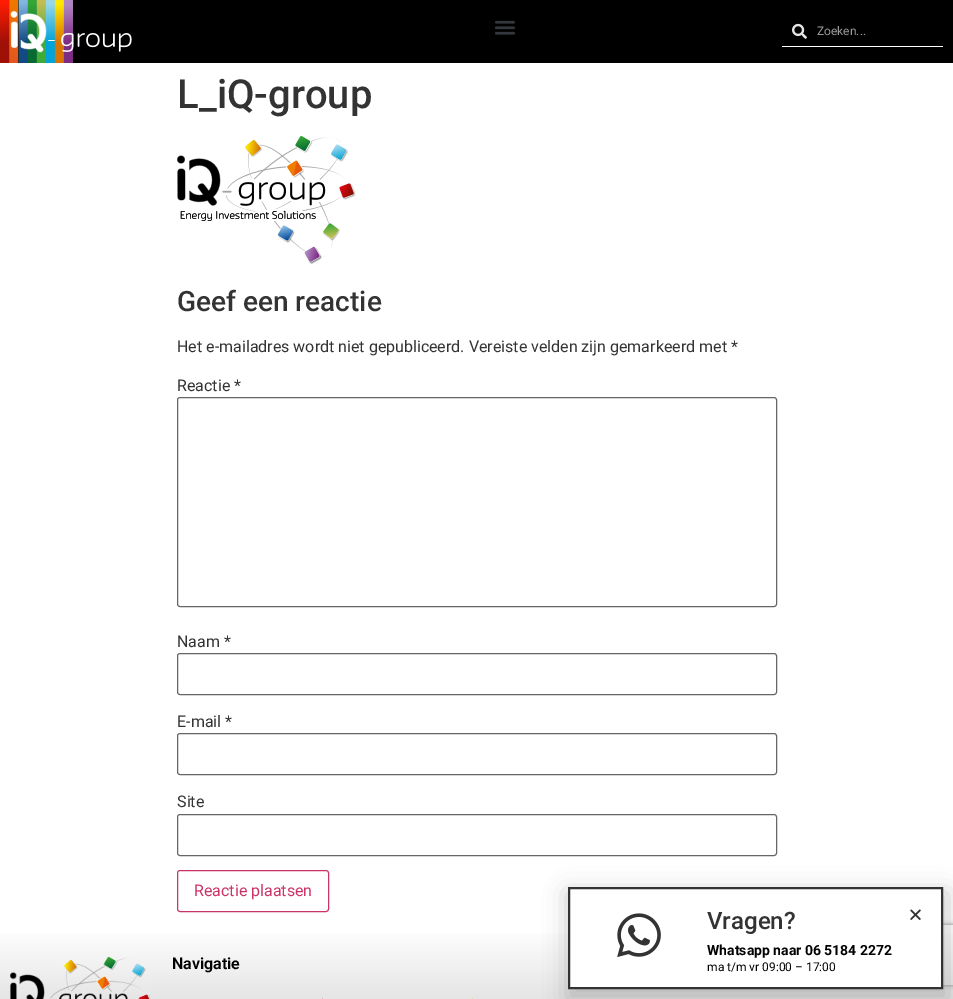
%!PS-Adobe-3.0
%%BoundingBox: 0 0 953 999
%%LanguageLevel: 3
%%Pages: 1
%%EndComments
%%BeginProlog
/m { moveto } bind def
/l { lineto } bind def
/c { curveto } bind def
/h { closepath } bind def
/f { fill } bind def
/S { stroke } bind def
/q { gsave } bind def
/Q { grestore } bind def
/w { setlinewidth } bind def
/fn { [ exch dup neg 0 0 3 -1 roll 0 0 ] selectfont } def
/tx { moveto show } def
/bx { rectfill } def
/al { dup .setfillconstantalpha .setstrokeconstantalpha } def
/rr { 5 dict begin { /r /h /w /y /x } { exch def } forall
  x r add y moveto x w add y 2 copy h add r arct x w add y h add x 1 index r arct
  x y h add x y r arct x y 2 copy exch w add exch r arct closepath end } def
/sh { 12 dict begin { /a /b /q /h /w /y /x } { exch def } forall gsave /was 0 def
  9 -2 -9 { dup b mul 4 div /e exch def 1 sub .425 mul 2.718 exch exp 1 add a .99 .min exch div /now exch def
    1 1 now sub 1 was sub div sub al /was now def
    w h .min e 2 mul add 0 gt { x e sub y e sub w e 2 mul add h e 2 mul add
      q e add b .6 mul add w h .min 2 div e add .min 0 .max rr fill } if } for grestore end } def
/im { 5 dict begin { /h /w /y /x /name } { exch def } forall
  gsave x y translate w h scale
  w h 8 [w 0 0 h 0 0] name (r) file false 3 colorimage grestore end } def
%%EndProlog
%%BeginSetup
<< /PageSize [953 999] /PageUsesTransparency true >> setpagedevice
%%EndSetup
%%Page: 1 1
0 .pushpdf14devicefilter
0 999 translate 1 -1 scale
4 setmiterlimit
1 setgray
0 0 953 999 bx
0 setgray
9 0 944 63 bx
(image0.raw) 0 0 73 63 im
(image1.raw) 10 11 122 42 im
(image2.raw) 495 20 20 15 im
1 setgray
782 46 161 1 bx
(image3.raw) 792 23 15 16 im
/Roboto-Regular 12 fn
0.6 setgray
(Zoeken...) 817 35 tx
/Roboto-Medium 40 fn
0.2 setgray
(L_iQ-group) 177 108 tx
(image4.raw) 177 136 179 128 im
/Roboto-Medium 28 fn
(Geef een reactie) 177 311 tx
/Roboto-Regular 16 fn
(Het e-mailadres wordt niet gepubliceerd. Vereiste velden zijn gemarkeerd met *) 177 352 tx
(Reactie *) 177 391 tx
0.4 setgray
177.5 397.5 599 209 2.5 rr S
0.2 setgray
(Naam *) 177 647 tx
0.4 setgray
177.5 653.5 599 41 2.5 rr S
0.2 setgray
(E-mail *) 177 727 tx
0.4 setgray
177.5 733.5 599 41 2.5 rr S
0.2 setgray
(Site) 177 807 tx
0.4 setgray
177.5 814.5 599 41 2.5 rr S
0.8 0.2 0.4 setrgbcolor
177.5 870.5 151 41 2.5 rr S
(Reactie plaatsen) 194 896 tx
q 0 933 m 953 933 l 953 999 l 0 999 l h clip newpath
<< /ShadingType 2 /ColorSpace /DeviceRGB /Coords [477 926 477 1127] /Extend [true true] /Function << /FunctionType 2 /Domain [0 1] /C0 [1 1 1] /C1 [0.722 0.722 0.722] /N 1 >> >> shfill Q
(image5.raw) 10 956 141 43 im
/Roboto-SemiBold 16 fn
0 setgray
(Navigatie) 172 969 tx
0.882 0.71 0.733 setrgbcolor
322 998 1 1 bx
0.91 0.847 0.737 setrgbcolor
472 998 1 1 bx
0 setgray
567 892 381 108 0 11.5 0.2 sh
q
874 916 m 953 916 l 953 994 l 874 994 l h 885 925 m 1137 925 l 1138 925 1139 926 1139 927 c 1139 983 l 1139 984 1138 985 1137 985 c 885 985 l 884 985 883 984 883 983 c 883 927 l 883 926 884 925 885 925 c h eoclip newpath
0.502 setgray
883 925 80 60 2 2.5 1 sh
Q
1 setgray
569 888 m 942 888 l 942 988 l 569 988 l h q f Q
0.2 setgray
2 w
S
(image6.raw) 617 913 44 45 im
/Roboto-Medium 24 fn
(Vragen?) 707 929 tx
/Roboto-Bold 14 fn
0 setgray
(Whatsapp naar 06 5184 2272) 707 955 tx
/Roboto-Regular 12 fn
(ma t/m vr 09:00 – 17:00) 707 971 tx
(image7.raw) 910 909 11 11 im
.poppdf14devicefilter showpage
%%EOF
